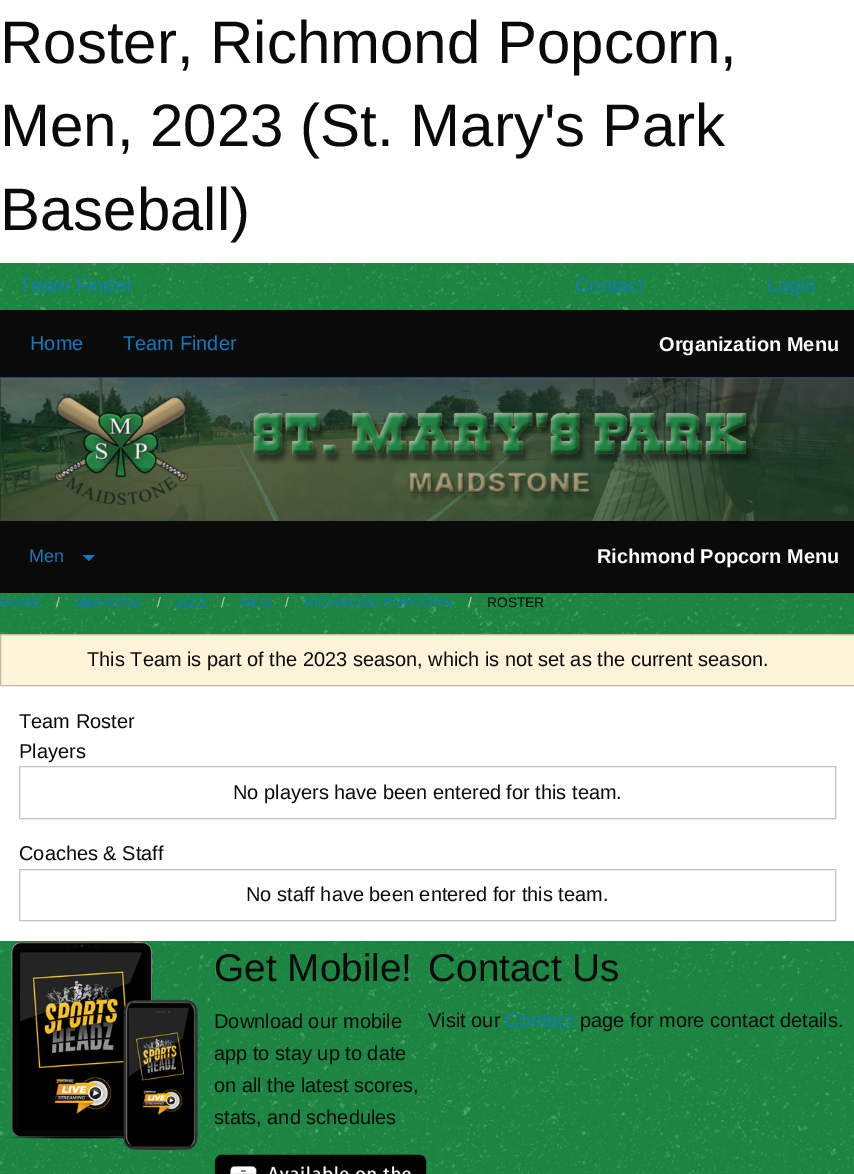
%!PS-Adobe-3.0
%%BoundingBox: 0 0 854 1174
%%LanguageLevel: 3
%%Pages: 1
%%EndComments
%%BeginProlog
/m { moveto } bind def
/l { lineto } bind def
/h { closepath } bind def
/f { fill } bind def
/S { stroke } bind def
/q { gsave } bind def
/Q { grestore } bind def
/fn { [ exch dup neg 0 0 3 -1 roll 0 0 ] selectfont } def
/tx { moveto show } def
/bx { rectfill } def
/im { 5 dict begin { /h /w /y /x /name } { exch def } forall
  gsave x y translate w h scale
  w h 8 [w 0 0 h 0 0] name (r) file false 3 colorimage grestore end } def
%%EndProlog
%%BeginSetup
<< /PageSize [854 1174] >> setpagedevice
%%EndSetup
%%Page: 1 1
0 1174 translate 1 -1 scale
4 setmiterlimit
1 setgray
0 0 854 1174 bx
/LiberationSans-Regular 60 fn
0.039 setgray
(Roster, Richmond Popcorn,) 0 63 tx
(Men, 2023 \(St. Mary's Park) 0 146 tx
(Baseball\)) 0 230 tx
0.106 0.522 0.255 setrgbcolor
0 263 854 911 bx
(image0.raw) 0 263 854 911 im
/LiberationSans-Regular 20 fn
0.09 0.475 0.729 setrgbcolor
(Team Finder) 19 292 tx
(Contact) 575 292 tx
(Login) 767 292 tx
0.039 setgray
0 310 854 68 bx
0.09 0.475 0.729 setrgbcolor
(Home) 30 350 tx
(Team Finder) 123 350 tx
/LiberationSans-Bold 20 fn
0.996 setgray
(Organization Menu) 659 351 tx
(image1.raw) 0 377 854 144 im
0.039 setgray
0 521 854 72 bx
/LiberationSans-Regular 18 fn
0.09 0.475 0.729 setrgbcolor
(Men) 29 562 tx
82.5 555 m 95 555 l 89 561 l h f
/LiberationSans-Bold 20 fn
0.996 setgray
(Richmond Popcorn Menu) 597 563 tx
/LiberationSans-Regular 13.75 fn
0.09 0.475 0.729 setrgbcolor
(HOME) 0 607 tx
0.792 setgray
(/) 56 607 tx
0.09 0.475 0.729 setrgbcolor
(SEASONS) 75 607 tx
0.792 setgray
(/) 157 607 tx
0.09 0.475 0.729 setrgbcolor
(2023) 175 607 tx
0.792 setgray
(/) 221 607 tx
0.09 0.475 0.729 setrgbcolor
(MEN) 240 607 tx
0.792 setgray
(/) 285 607 tx
0.09 0.475 0.729 setrgbcolor
(RICHMOND POPCORN) 304 607 tx
0.792 setgray
(/) 468 607 tx
0.039 setgray
(ROSTER) 487 607 tx
1 setgray
0 686 854 255 bx
1 0.953 0.851 setrgbcolor
0.5 634.5 m 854.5 634.5 l 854.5 685.5 l 0.5 685.5 l h q f Q
0.761 0.725 0.647 setrgbcolor
S
/LiberationSans-Regular 20 fn
0.039 setgray
(This Team is part of the 2023 season, which is not set as the current season.) 87 666 tx
(Team Roster) 19 728 tx
(Players) 19 758 tx
0.761 setgray
19.5 766.5 816 52 rectstroke
0.039 setgray
(No players have been entered for this team.) 233 799 tx
(Coaches & Staff) 19 860 tx
0.761 setgray
19.5 869.5 816 51 rectstroke
0.039 setgray
(No staff have been entered for this team.) 246 901 tx
(image2.raw) 4 941 197 209 im
/LiberationSans-Regular 38.75 fn
(Get Mobile!) 214 981 tx
/LiberationSans-Regular 20 fn
(Download our mobile) 214 1028 tx
(app to stay up to date) 214 1060 tx
(on all the latest scores,) 214 1092 tx
(stats, and schedules) 214 1124 tx
(image3.raw) 214 1154 213 20 im
/LiberationSans-Regular 38.75 fn
(Contact Us) 428 981 tx
/LiberationSans-Regular 20 fn
(Visit our) 428 1027 tx
0.09 0.475 0.729 setrgbcolor
(Contact) 505 1027 tx
0.039 setgray
(page for more contact details.) 580 1027 tx
showpage
%%EOF
